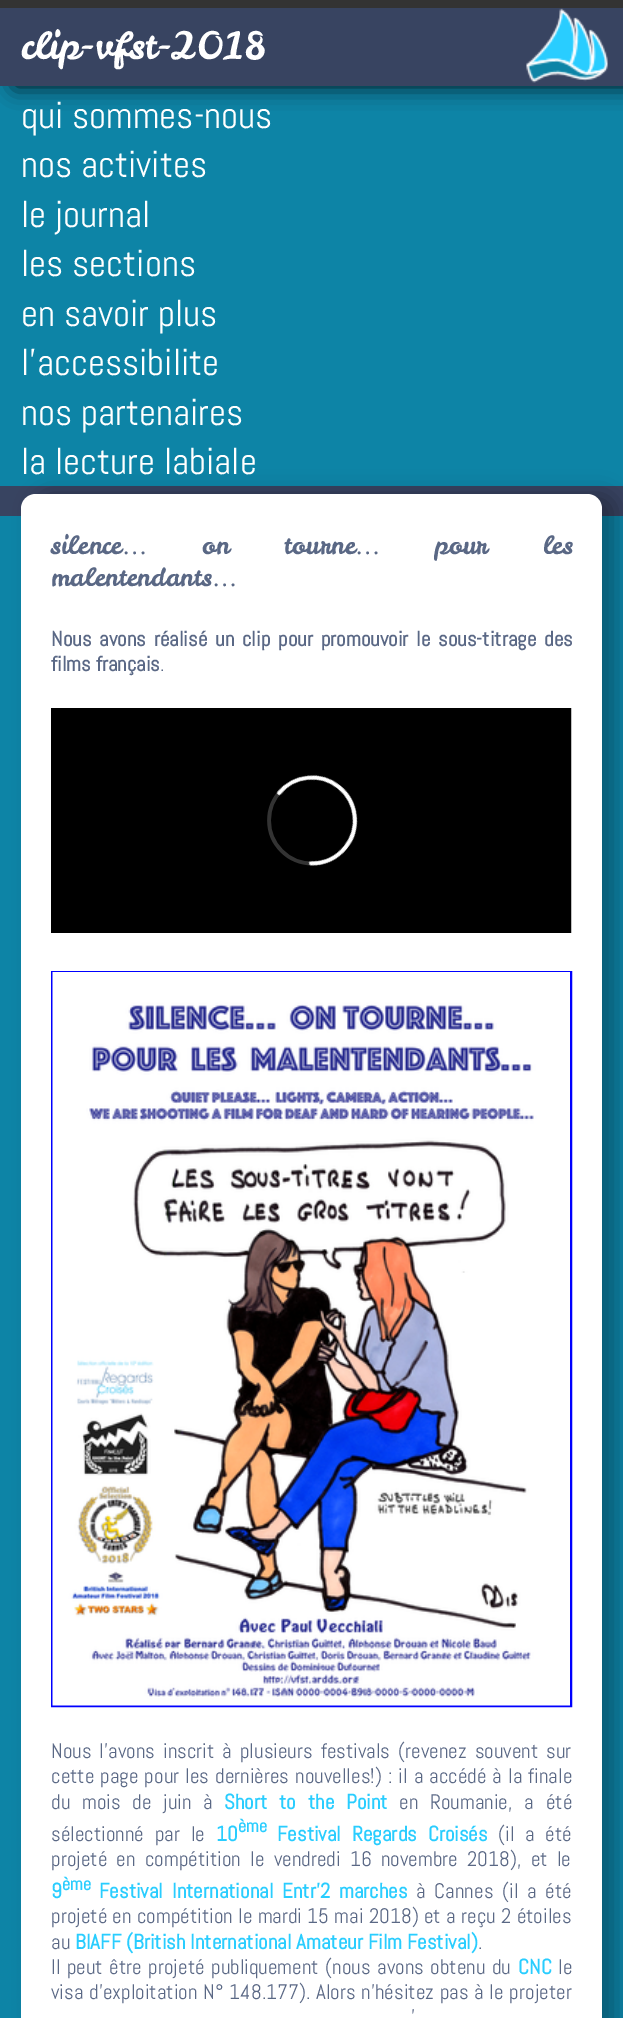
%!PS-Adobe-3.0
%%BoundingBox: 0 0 623 2018
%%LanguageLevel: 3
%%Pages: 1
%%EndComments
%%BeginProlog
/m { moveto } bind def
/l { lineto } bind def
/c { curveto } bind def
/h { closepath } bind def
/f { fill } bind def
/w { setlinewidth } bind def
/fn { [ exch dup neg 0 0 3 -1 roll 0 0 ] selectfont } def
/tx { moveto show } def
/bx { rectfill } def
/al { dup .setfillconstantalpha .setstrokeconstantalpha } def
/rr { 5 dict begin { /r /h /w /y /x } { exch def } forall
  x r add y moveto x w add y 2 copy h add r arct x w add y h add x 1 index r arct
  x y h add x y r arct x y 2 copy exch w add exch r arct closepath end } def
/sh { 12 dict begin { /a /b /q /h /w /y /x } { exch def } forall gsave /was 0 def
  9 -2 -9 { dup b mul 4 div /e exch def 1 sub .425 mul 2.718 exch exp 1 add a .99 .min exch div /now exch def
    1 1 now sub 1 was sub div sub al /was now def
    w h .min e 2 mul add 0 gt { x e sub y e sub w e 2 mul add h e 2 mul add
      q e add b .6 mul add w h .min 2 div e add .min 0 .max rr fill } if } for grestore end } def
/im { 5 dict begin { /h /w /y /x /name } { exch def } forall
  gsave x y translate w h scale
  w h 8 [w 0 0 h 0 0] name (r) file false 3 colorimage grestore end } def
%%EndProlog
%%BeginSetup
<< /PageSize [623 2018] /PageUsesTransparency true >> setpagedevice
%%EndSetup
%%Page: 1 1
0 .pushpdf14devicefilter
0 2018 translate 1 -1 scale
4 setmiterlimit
0.051 0.518 0.651 setrgbcolor
0 0 623 2018 bx
0 setgray
15 0 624 86 0 11 0.9 sh
0.22 0.267 0.38 setrgbcolor
0 8 623 78 bx
0.2 setgray
0 0 623 8 bx
/LeckerliOne-Regular 37.5 fn
1 setgray
(clip-vfst-2018) 21 59 tx
(image0.raw) 526 8 82 75 im
/Abel-Regular 37.5 fn
(qui sommes-nous) 21 128 tx
(nos activites) 21 177 tx
(le journal) 21 227 tx
(les sections) 21 276 tx
(en savoir plus) 21 326 tx
(l'accessibilite) 21 375 tx
(nos partenaires) 21 425 tx
0.22 0.267 0.38 setrgbcolor
0 486 623 30 bx
0 setgray
36 494 581 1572 15 11 0.3 sh
1 setgray
(la lecture labiale) 21 474 tx
36 494 m 587 494 l 595.5 494 602 500.5 602 509 c 602 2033 l 21 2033 l 21 509 l 21 500.5 27.5 494 36 494 c h f
/LeckerliOne-Regular 25.25 fn
0.353 0.408 0.522 setrgbcolor
(silence) 51 554 tx
/LiberationSerif-Regular 25.25 fn
(…) 122 554 tx
/LeckerliOne-Regular 25.25 fn
202 554 m 45 0 32 (on tourne) widthshow
/LiberationSerif-Regular 25.25 fn
(…) 355 554 tx
/LeckerliOne-Regular 25.25 fn
435 554 m 45 0 32 (pour les) widthshow
(malentendants) 51 586 tx
/LiberationSerif-Regular 25.25 fn
(…) 212 586 tx
/Abel-Bold 21 fn
51 646 m 3 0 32 (Nous avons réalisé un clip pour promouvoir le sous-titrage des) widthshow
(films français) 51 671 tx
/Abel-Regular 21 fn
(.) 160 671 tx
(image1.raw) 51 708 521 225 im
0 0 1 setrgbcolor
2 w
52 972 519 734 rectstroke
(image2.raw) 52 972 518 734 im
0.353 0.408 0.522 setrgbcolor
51 1758 m 3.25 0 32 (Nous l’avons inscrit à plusieurs festivals \(revenez souvent sur) widthshow
51 1783 m 1.25 0 32 (cette page pour les dernières nouvelles!\) : il a accédé à la finale) widthshow
51 1809 m 7 0 32 (du mois de juin à) widthshow
/Abel-Bold 21 fn
0.161 0.804 1 setrgbcolor
224 1809 m 7 0 32 (Short to the Point) widthshow
/Abel-Regular 21 fn
0.353 0.408 0.522 setrgbcolor
399 1809 m 7 0 32 (en Roumanie, a été) widthshow
51 1841 m 6 0 32 (sélectionné par le) widthshow
/Abel-Bold 21 fn
0.161 0.804 1 setrgbcolor
(10) 216 1841 tx
/Abel-Bold 18 fn
(ème) 238 1832 tx
/Abel-Bold 21 fn
277 1841 m 6 0 32 (Festival Regards Croisés) widthshow
/Abel-Regular 21 fn
0.353 0.408 0.522 setrgbcolor
498 1841 m 6 0 32 (\(il a été) widthshow
51 1866 m 4.5 0 32 (projeté en compétition le vendredi 16 novembre 2018\), et le) widthshow
/Abel-Bold 21 fn
0.161 0.804 1 setrgbcolor
(9) 51 1898 tx
/Abel-Bold 18 fn
(ème) 62 1890 tx
/Abel-Bold 21 fn
99 1898 m 4 0 32 (Festival International Entr'2 marches) widthshow
/Abel-Regular 21 fn
0.353 0.408 0.522 setrgbcolor
416 1898 m 4 0 32 (à Cannes \(il a été) widthshow
51 1923 m 0.5 0 32 (projeté en compétition le mardi 15 mai 2018\) et a reçu 2 étoiles) widthshow
(au) 51 1949 tx
/Abel-Bold 21 fn
0.161 0.804 1 setrgbcolor
(BIAFF \(British International Amateur Film Festival\)) 75 1949 tx
/Abel-Regular 21 fn
0.353 0.408 0.522 setrgbcolor
(.) 478 1949 tx
51 1974 m 1.75 0 32 (Il peut être projeté publiquement \(nous avons obtenu du) widthshow
/Abel-Bold 21 fn
0.161 0.804 1 setrgbcolor
(CNC) 518 1974 tx
/Abel-Regular 21 fn
0.353 0.408 0.522 setrgbcolor
(le) 558 1974 tx
51 1999 m 1 0 32 (visa d’exploitation N° 148.177\). Alors n’hésitez pas à le projeter) widthshow
411 2024 m 6 0 32 (') widthshow
.poppdf14devicefilter showpage
%%EOF
